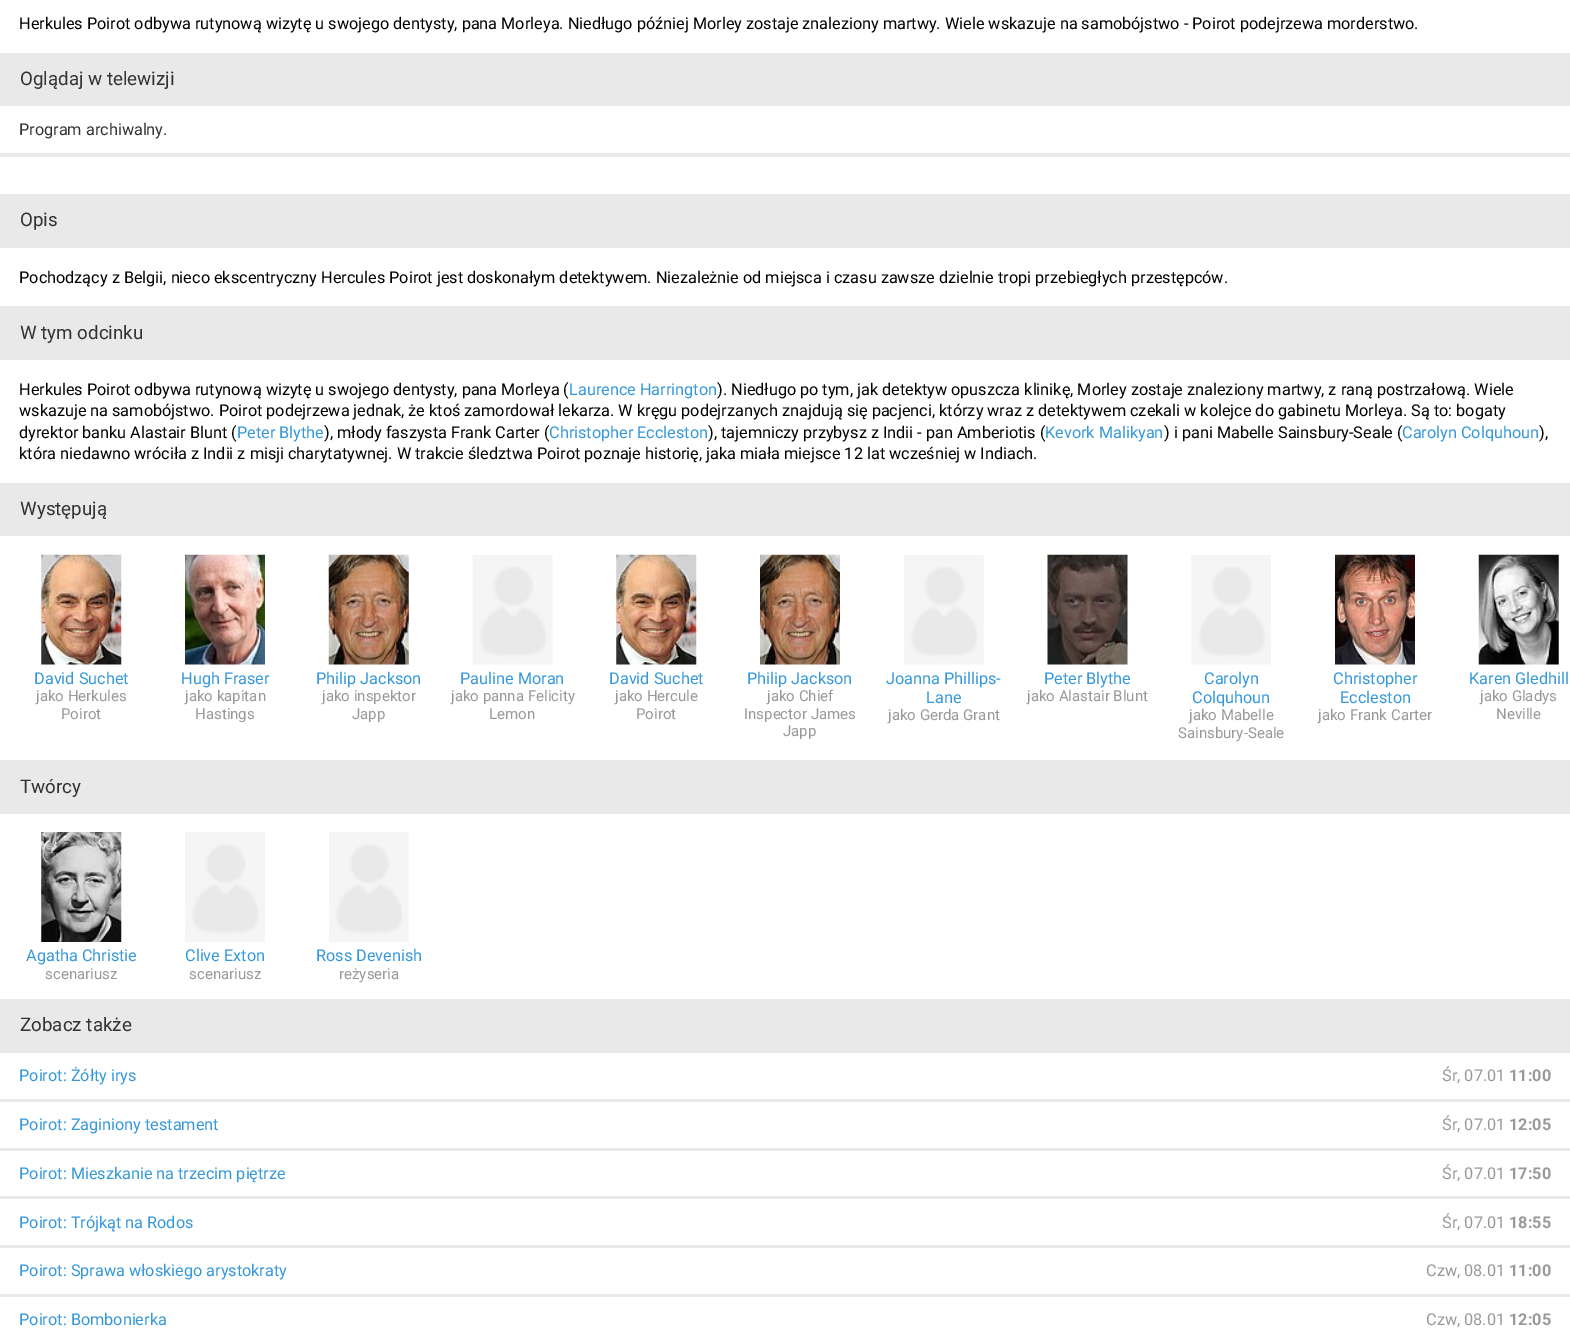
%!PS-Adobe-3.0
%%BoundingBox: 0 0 1570 1340
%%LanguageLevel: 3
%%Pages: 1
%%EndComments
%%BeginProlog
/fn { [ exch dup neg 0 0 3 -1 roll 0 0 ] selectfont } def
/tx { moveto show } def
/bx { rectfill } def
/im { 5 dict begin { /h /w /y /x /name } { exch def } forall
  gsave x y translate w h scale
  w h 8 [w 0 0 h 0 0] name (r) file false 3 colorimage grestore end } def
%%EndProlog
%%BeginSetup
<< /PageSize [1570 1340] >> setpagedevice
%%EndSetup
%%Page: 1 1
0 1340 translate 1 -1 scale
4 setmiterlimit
1 setgray
0 0 1570 1340 bx
/Roboto-Regular 16.25 fn
0 setgray
(Herkules Poirot odbywa rutynową wizytę u swojego dentysty, pana Morleya. Niedługo później Morley zostaje znaleziony martwy. Wiele wskazuje na samobójstwo - Poirot podejrzewa morderstwo.) 19 29 tx
0.914 setgray
0 53 1570 53 bx
/Roboto-Regular 18.75 fn
0.2 setgray
(Oglądaj w telewizji) 20 85 tx
0.914 setgray
0 153 1570 4 bx
/Roboto-Regular 16.25 fn
0.2 setgray
(Program archiwalny.) 19 135 tx
0.914 setgray
0 194 1570 54 bx
/Roboto-Regular 18.75 fn
0.2 setgray
(Opis) 20 226 tx
/Roboto-Regular 16.25 fn
0 setgray
(Pochodzący z Belgii, nieco ekscentryczny Hercules Poirot jest doskonałym detektywem. Niezależnie od miejsca i czasu zawsze dzielnie tropi przebiegłych przestępców.) 19 283 tx
0.914 setgray
0 306 1570 54 bx
/Roboto-Regular 18.75 fn
0.2 setgray
(W tym odcinku) 20 339 tx
/Roboto-Regular 16.25 fn
0 setgray
(Herkules Poirot odbywa rutynową wizytę u swojego dentysty, pana Morleya \() 19 395 tx
0.204 0.596 0.859 setrgbcolor
(Laurence Harrington) 569 395 tx
0 setgray
(\). Niedługo po tym, jak detektyw opuszcza klinikę, Morley zostaje znaleziony martwy, z raną postrzałową. Wiele) 717 395 tx
(wskazuje na samobójstwo. Poirot podejrzewa jednak, że ktoś zamordował lekarza. W kręgu podejrzanych znajdują się pacjenci, którzy wraz z detektywem czekali w kolejce do gabinetu Morleya. Są to: bogaty) 19 416 tx
(dyrektor banku Alastair Blunt \() 19 438 tx
0.204 0.596 0.859 setrgbcolor
(Peter Blythe) 237 438 tx
0 setgray
(\), młody faszysta Frank Carter \() 324 438 tx
0.204 0.596 0.859 setrgbcolor
(Christopher Eccleston) 549 438 tx
0 setgray
(\), tajemniczy przybysz z Indii - pan Amberiotis \() 708 438 tx
0.204 0.596 0.859 setrgbcolor
(Kevork Malikyan) 1045 438 tx
0 setgray
(\) i pani Mabelle Sainsbury-Seale \() 1164 438 tx
0.204 0.596 0.859 setrgbcolor
(Carolyn Colquhoun) 1402 438 tx
0 setgray
(\),) 1539 438 tx
(która niedawno wróciła z Indii z misji charytatywnej. W trakcie śledztwa Poirot poznaje historię, jaka miała miejsce 12 lat wcześniej w Indiach.) 19 459 tx
0.914 setgray
0 483 1570 53 bx
/Roboto-Regular 18.75 fn
0.2 setgray
(Występują) 20 515 tx
(image0.raw) 41 554 81 111 im
/Roboto-Regular 16.25 fn
0.204 0.596 0.859 setrgbcolor
(David Suchet) 34 684 tx
/Roboto-Regular 15 fn
0.6 setgray
(jako Herkules) 36 701 tx
(Poirot) 61 719 tx
(image1.raw) 185 554 80 111 im
/Roboto-Regular 16.25 fn
0.204 0.596 0.859 setrgbcolor
(Hugh Fraser) 181 684 tx
/Roboto-Regular 15 fn
0.6 setgray
(jako kapitan) 185 701 tx
(Hastings) 195 719 tx
(image2.raw) 328 554 81 111 im
/Roboto-Regular 16.25 fn
0.204 0.596 0.859 setrgbcolor
(Philip Jackson) 316 684 tx
/Roboto-Regular 15 fn
0.6 setgray
(jako inspektor) 322 701 tx
(Japp) 352 719 tx
(image3.raw) 472 555 81 110 im
/Roboto-Regular 16.25 fn
0.204 0.596 0.859 setrgbcolor
(Pauline Moran) 460 684 tx
/Roboto-Regular 15 fn
0.6 setgray
(jako panna Felicity) 451 701 tx
(Lemon) 489 719 tx
(image0.raw) 616 554 81 111 im
/Roboto-Regular 16.25 fn
0.204 0.596 0.859 setrgbcolor
(David Suchet) 609 684 tx
/Roboto-Regular 15 fn
0.6 setgray
(jako Hercule) 615 701 tx
(Poirot) 636 719 tx
(image4.raw) 760 554 80 111 im
/Roboto-Regular 16.25 fn
0.204 0.596 0.859 setrgbcolor
(Philip Jackson) 747 684 tx
/Roboto-Regular 15 fn
0.6 setgray
(jako Chief) 767 701 tx
(Inspector James) 744 719 tx
(Japp) 783 736 tx
(image5.raw) 904 555 80 110 im
/Roboto-Regular 16.25 fn
0.204 0.596 0.859 setrgbcolor
(Joanna Phillips-) 886 684 tx
(Lane) 926 703 tx
/Roboto-Regular 15 fn
0.6 setgray
(jako Gerda Grant) 888 720 tx
(image6.raw) 1047 554 81 111 im
/Roboto-Regular 16.25 fn
0.204 0.596 0.859 setrgbcolor
(Peter Blythe) 1044 684 tx
/Roboto-Regular 15 fn
0.6 setgray
(jako Alastair Blunt) 1027 701 tx
(image7.raw) 1191 555 80 110 im
/Roboto-Regular 16.25 fn
0.204 0.596 0.859 setrgbcolor
(Carolyn) 1204 684 tx
(Colquhoun) 1192 703 tx
/Roboto-Regular 15 fn
0.6 setgray
(jako Mabelle) 1189 720 tx
(Sainsbury-Seale) 1178 738 tx
(image8.raw) 1335 554 80 111 im
/Roboto-Regular 16.25 fn
0.204 0.596 0.859 setrgbcolor
(Christopher) 1333 684 tx
(Eccleston) 1340 703 tx
/Roboto-Regular 15 fn
0.6 setgray
(jako Frank Carter) 1318 720 tx
(image9.raw) 1478 554 81 111 im
/Roboto-Regular 16.25 fn
0.204 0.596 0.859 setrgbcolor
(Karen Gledhill) 1469 684 tx
/Roboto-Regular 15 fn
0.6 setgray
(jako Gladys) 1480 701 tx
(Neville) 1496 719 tx
0.914 setgray
0 760 1570 54 bx
/Roboto-Regular 18.75 fn
0.2 setgray
(Twórcy) 20 793 tx
(image10.raw) 41 832 81 110 im
/Roboto-Regular 16.25 fn
0.204 0.596 0.859 setrgbcolor
(Agatha Christie) 26 961 tx
/Roboto-Regular 15 fn
0.6 setgray
(scenariusz) 45 979 tx
(image11.raw) 185 832 80 110 im
/Roboto-Regular 16.25 fn
0.204 0.596 0.859 setrgbcolor
(Clive Exton) 185 961 tx
/Roboto-Regular 15 fn
0.6 setgray
(scenariusz) 189 979 tx
(image12.raw) 329 832 80 110 im
/Roboto-Regular 16.25 fn
0.204 0.596 0.859 setrgbcolor
(Ross Devenish) 316 961 tx
/Roboto-Regular 15 fn
0.6 setgray
(reżyseria) 339 979 tx
0.914 setgray
0 999 1570 54 bx
/Roboto-Regular 18.75 fn
0.2 setgray
(Zobacz także) 20 1031 tx
0.914 setgray
0 1099 1570 3 bx
/Roboto-Regular 16.25 fn
0.204 0.596 0.859 setrgbcolor
(Poirot: Żółty irys) 19 1081 tx
0.6 setgray
(Śr, 07.01) 1442 1081 tx
/Roboto-Bold 16.25 fn
(11:00) 1509 1081 tx
0.914 setgray
0 1148 1570 3 bx
/Roboto-Regular 16.25 fn
0.204 0.596 0.859 setrgbcolor
(Poirot: Zaginiony testament) 19 1130 tx
0.6 setgray
(Śr, 07.01) 1442 1130 tx
/Roboto-Bold 16.25 fn
(12:05) 1509 1130 tx
0.914 setgray
0 1196 1570 3 bx
/Roboto-Regular 16.25 fn
0.204 0.596 0.859 setrgbcolor
(Poirot: Mieszkanie na trzecim piętrze) 19 1179 tx
0.6 setgray
(Śr, 07.01) 1442 1179 tx
/Roboto-Bold 16.25 fn
(17:50) 1509 1179 tx
0.914 setgray
0 1245 1570 3 bx
/Roboto-Regular 16.25 fn
0.204 0.596 0.859 setrgbcolor
(Poirot: Trójkąt na Rodos) 19 1228 tx
0.6 setgray
(Śr, 07.01) 1442 1228 tx
/Roboto-Bold 16.25 fn
(18:55) 1509 1228 tx
0.914 setgray
0 1294 1570 3 bx
/Roboto-Regular 16.25 fn
0.204 0.596 0.859 setrgbcolor
(Poirot: Sprawa włoskiego arystokraty) 19 1276 tx
0.6 setgray
(Czw, 08.01) 1426 1276 tx
/Roboto-Bold 16.25 fn
(11:00) 1509 1276 tx
/Roboto-Regular 16.25 fn
0.204 0.596 0.859 setrgbcolor
(Poirot: Bombonierka) 19 1325 tx
0.6 setgray
(Czw, 08.01) 1426 1325 tx
/Roboto-Bold 16.25 fn
(12:05) 1509 1325 tx
showpage
%%EOF
